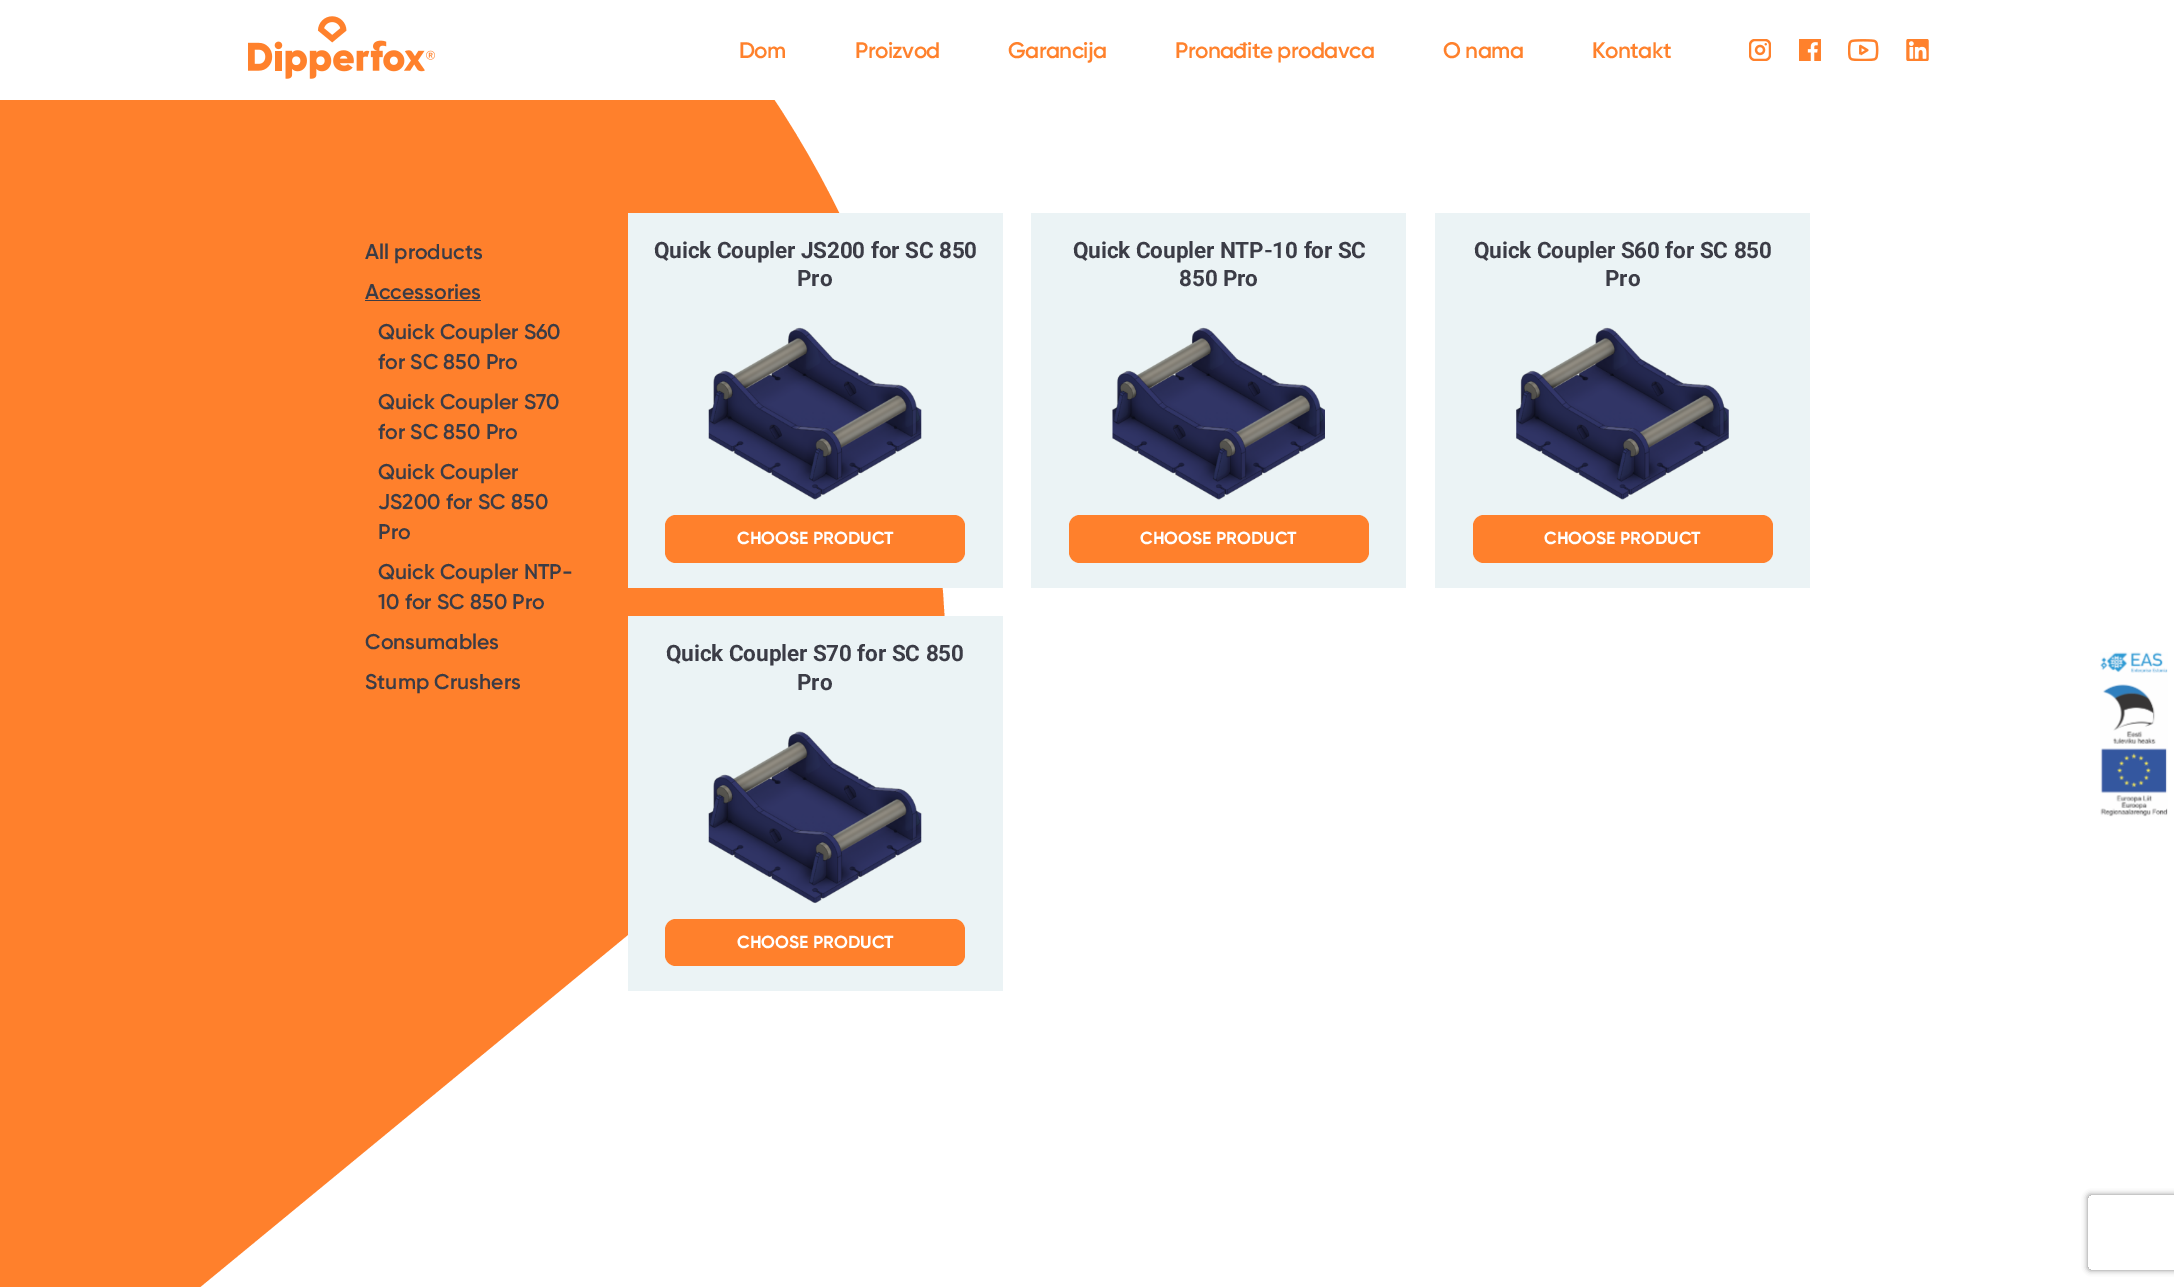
%!PS-Adobe-3.0
%%BoundingBox: 0 0 2174 1287
%%LanguageLevel: 3
%%Pages: 1
%%EndComments
%%BeginProlog
/m { moveto } bind def
/l { lineto } bind def
/c { curveto } bind def
/h { closepath } bind def
/f { fill } bind def
/q { gsave } bind def
/Q { grestore } bind def
/fn { [ exch dup neg 0 0 3 -1 roll 0 0 ] selectfont } def
/tx { moveto show } def
/bx { rectfill } def
/al { dup .setfillconstantalpha .setstrokeconstantalpha } def
/rr { 5 dict begin { /r /h /w /y /x } { exch def } forall
  x r add y moveto x w add y 2 copy h add r arct x w add y h add x 1 index r arct
  x y h add x y r arct x y 2 copy exch w add exch r arct closepath end } def
/sh { 12 dict begin { /a /b /q /h /w /y /x } { exch def } forall gsave /was 0 def
  9 -2 -9 { dup b mul 4 div /e exch def 1 sub .425 mul 2.718 exch exp 1 add a .99 .min exch div /now exch def
    1 1 now sub 1 was sub div sub al /was now def
    w h .min e 2 mul add 0 gt { x e sub y e sub w e 2 mul add h e 2 mul add
      q e add b .6 mul add w h .min 2 div e add .min 0 .max rr fill } if } for grestore end } def
/im { 5 dict begin { /h /w /y /x /name } { exch def } forall
  gsave x y translate w h scale
  w h 8 [w 0 0 h 0 0] name (r) file false 3 colorimage grestore end } def
%%EndProlog
%%BeginSetup
<< /PageSize [2174 1287] /PageUsesTransparency true >> setpagedevice
%%EndSetup
%%Page: 1 1
0 .pushpdf14devicefilter
0 1287 translate 1 -1 scale
4 setmiterlimit
1 setgray
0 0 2174 1287 bx
1 0.502 0.173 setrgbcolor
-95 -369 m -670 -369 -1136 97 -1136 672 c -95 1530 l 946 673 l 946 98 480 -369 -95 -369 c h f
1 setgray
0 0 775 100 bx
(image0.raw) 248 16 187 63 im
/Gilroy-Regular 22.5 fn
1 0.506 0.173 setrgbcolor
739 58 m -0.6 0 (Dom) ashow
855 58 m -0.6 0 (Proizvod) ashow
1008 58 m -0.6 0 (Garancija) ashow
1175 58 m -0.6 0 (Pronađite prodavca) ashow
1443 58 m -0.6 0 (O nama) ashow
1592 58 m -0.6 0 (Kontakt) ashow
(image1.raw) 1749 39 22 22 im
(image2.raw) 1799 39 22 22 im
(image3.raw) 1848 39 31 22 im
(image4.raw) 1906 39 23 22 im
/Gilroy-Regular 21.25 fn
0.231 0.235 0.275 setrgbcolor
(All products) 365 259 tx
(Accessories) 365 299 tx
365 300 116 1 bx
(Quick Coupler S60) 378 339 tx
(for SC 850 Pro) 378 369 tx
(Quick Coupler S70) 378 409 tx
(for SC 850 Pro) 378 439 tx
(Quick Coupler) 378 479 tx
(JS200 for SC 850) 378 509 tx
(Pro) 378 539 tx
(Quick Coupler NTP-) 378 579 tx
(10 for SC 850 Pro) 378 609 tx
(Consumables) 365 649 tx
(Stump Crushers) 365 689 tx
0.922 0.953 0.961 setrgbcolor
628 213 375 375 bx
/Roboto-Bold 22.5 fn
0.231 0.235 0.275 setrgbcolor
654 258 m -0.1 0 (Quick Coupler JS200 for SC 850) ashow
797 286 m -0.1 0 (Pro) ashow
(image5.raw) 708 327 214 173 im
1 0.502 0.173 setrgbcolor
665 515 300 48 11 rr f
/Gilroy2-Regular 17.5 fn
1 setgray
(CHOOSE PRODUCT) 737 544 tx
0.922 0.953 0.961 setrgbcolor
1031 213 375 375 bx
/Roboto-Bold 22.5 fn
0.231 0.235 0.275 setrgbcolor
1073 258 m -0.1 0 (Quick Coupler NTP-10 for SC) ashow
1179 286 m -0.1 0 (850 Pro) ashow
(image6.raw) 1112 327 213 173 im
1 0.502 0.173 setrgbcolor
1069 515 300 48 11 rr f
/Gilroy2-Regular 17.5 fn
1 setgray
(CHOOSE PRODUCT) 1140 544 tx
0.922 0.953 0.961 setrgbcolor
1435 213 375 375 bx
/Roboto-Bold 22.5 fn
0.231 0.235 0.275 setrgbcolor
1474 258 m -0.1 0 (Quick Coupler S60 for SC 850) ashow
1605 286 m -0.1 0 (Pro) ashow
(image7.raw) 1516 327 213 173 im
1 0.502 0.173 setrgbcolor
1473 515 300 48 11 rr f
/Gilroy2-Regular 17.5 fn
1 setgray
(CHOOSE PRODUCT) 1544 544 tx
0.922 0.953 0.961 setrgbcolor
628 616 375 375 bx
/Roboto-Bold 22.5 fn
0.231 0.235 0.275 setrgbcolor
666 661 m -0.1 0 (Quick Coupler S70 for SC 850) ashow
797 690 m -0.1 0 (Pro) ashow
(image8.raw) 708 731 214 173 im
1 0.502 0.173 setrgbcolor
665 919 300 47 11 rr f
/Gilroy2-Regular 17.5 fn
1 setgray
(CHOOSE PRODUCT) 737 948 tx
(image9.raw) 2100 652 68 165 im
q
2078 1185 m 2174 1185 l 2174 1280 l 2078 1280 l h 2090.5 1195 m 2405.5 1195 l 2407 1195 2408 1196 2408 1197.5 c 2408 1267.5 l 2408 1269 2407 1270 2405.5 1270 c 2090.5 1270 l 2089 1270 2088 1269 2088 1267.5 c 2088 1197.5 l 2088 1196 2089 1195 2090.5 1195 c h eoclip newpath
0.502 setgray
2088 1195 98 75 2.5 3 1 sh
Q
.poppdf14devicefilter showpage
%%EOF
